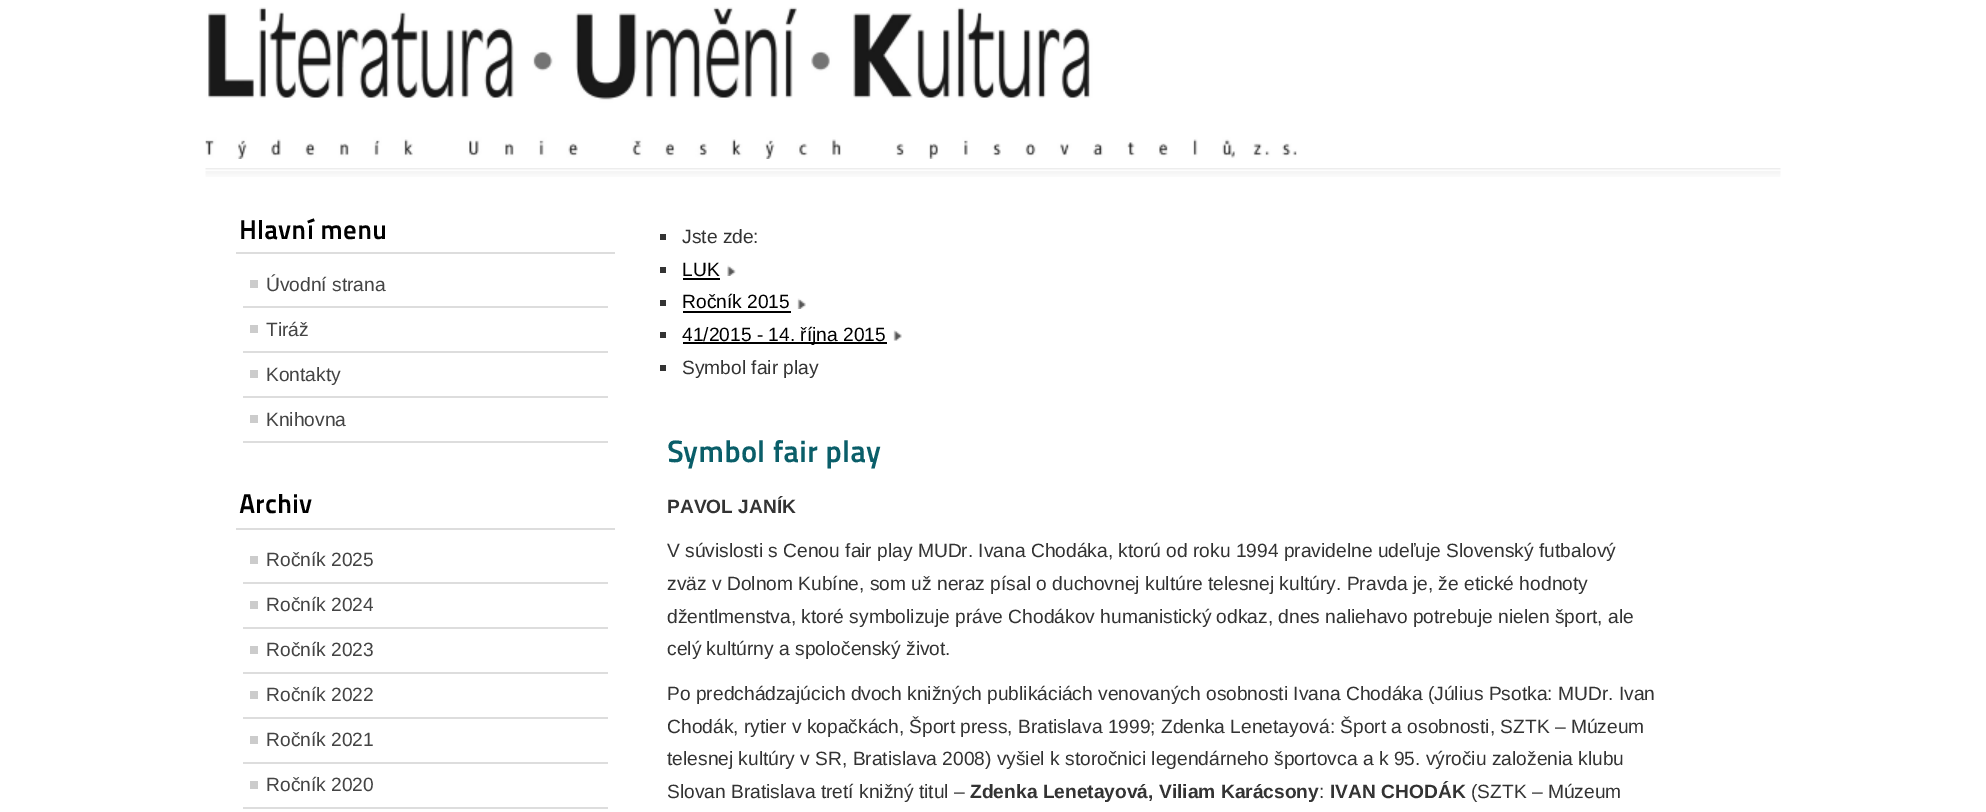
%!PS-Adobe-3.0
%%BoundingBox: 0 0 1986 812
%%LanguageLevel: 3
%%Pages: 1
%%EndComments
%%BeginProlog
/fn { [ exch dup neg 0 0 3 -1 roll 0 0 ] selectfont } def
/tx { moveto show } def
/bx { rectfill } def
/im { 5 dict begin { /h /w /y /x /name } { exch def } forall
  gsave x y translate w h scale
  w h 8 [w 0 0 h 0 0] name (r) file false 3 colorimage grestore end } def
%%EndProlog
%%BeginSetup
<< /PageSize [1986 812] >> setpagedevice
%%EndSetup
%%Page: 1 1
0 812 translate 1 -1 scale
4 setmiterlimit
1 setgray
0 0 1986 812 bx
(image0.raw) 205 7 1092 152 im
(image1.raw) 205 168 1576 9 im
0.867 setgray
236 252 379 2 bx
/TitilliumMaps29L-ExtraBold 27 fn
0 setgray
(Hlavní menu) 239 239 tx
0.867 setgray
243 306 365 2 bx
0.8 setgray
250 280 8 8 bx
/LiberationSans-Regular 19.2 fn
0.267 setgray
(Úvodní strana) 266 291 tx
0.867 setgray
243 351 365 2 bx
0.8 setgray
250 325 8 8 bx
0.267 setgray
(Tiráž) 266 336 tx
0.867 setgray
243 396 365 2 bx
0.8 setgray
250 370 8 8 bx
0.267 setgray
(Kontakty) 266 381 tx
0.867 setgray
243 441 365 2 bx
0.8 setgray
250 415 8 8 bx
0.267 setgray
(Knihovna) 266 426 tx
0.867 setgray
236 528 379 2 bx
/TitilliumMaps29L-ExtraBold 27 fn
0 setgray
(Archiv) 239 513 tx
0.867 setgray
243 582 365 2 bx
0.8 setgray
250 556 8 8 bx
/LiberationSans-Regular 19.2 fn
0.267 setgray
(Ročník 2025) 266 566 tx
0.867 setgray
243 627 365 2 bx
0.8 setgray
250 601 8 8 bx
0.267 setgray
(Ročník 2024) 266 611 tx
0.867 setgray
243 672 365 2 bx
0.8 setgray
250 646 8 8 bx
0.267 setgray
(Ročník 2023) 266 656 tx
0.867 setgray
243 717 365 2 bx
0.8 setgray
250 691 8 8 bx
0.267 setgray
(Ročník 2022) 266 701 tx
0.867 setgray
243 762 365 2 bx
0.8 setgray
250 736 8 8 bx
0.267 setgray
(Ročník 2021) 266 746 tx
0.867 setgray
243 807 365 2 bx
0.8 setgray
250 781 8 8 bx
0.267 setgray
(Ročník 2020) 266 791 tx
0.2 setgray
660 234 6 6 bx
(Jste zde:) 682 243 tx
660 267 6 6 bx
0 setgray
(LUK) 682 276 tx
683 278 37 2 bx
(image2.raw) 727 265 9 11 im
0.2 setgray
660 300 6 6 bx
0 setgray
(Ročník 2015) 682 308 tx
683 311 108 2 bx
(image3.raw) 797 298 9 11 im
0.2 setgray
660 332 6 6 bx
0 setgray
683 342 204 2 bx
(41/2015 - 14. října 2015) 682 341 tx
(image4.raw) 893 330 9 11 im
0.2 setgray
660 365 6 6 bx
(Symbol fair play) 682 374 tx
/TitilliumMaps29L-ExtraBold 30.75 fn
0.039 0.369 0.412 setrgbcolor
(Symbol fair play) 667 462 tx
/LiberationSans-Bold 19.2 fn
0.2 setgray
(PAVOL JANÍK) 667 513 tx
/LiberationSans-Regular 19.2 fn
(V súvislosti s Cenou fair play MUDr. Ivana Chodáka, ktorú od roku 1994 pravidelne udeľuje Slovenský futbalový) 667 557 tx
(zväz v Dolnom Kubíne, som už neraz písal o duchovnej kultúre telesnej kultúry. Pravda je, že etické hodnoty) 667 590 tx
(džentlmenstva, ktoré symbolizuje práve Chodákov humanistický odkaz, dnes naliehavo potrebuje nielen šport, ale) 667 623 tx
(celý kultúrny a spoločenský život.) 667 655 tx
(Po predchádzajúcich dvoch knižných publikáciách venovaných osobnosti Ivana Chodáka \(Július Psotka: MUDr. Ivan) 667 700 tx
(Chodák, rytier v kopačkách, Šport press, Bratislava 1999; Zdenka Lenetayová: Šport a osobnosti, SZTK – Múzeum) 667 733 tx
(telesnej kultúry v SR, Bratislava 2008\) vyšiel k storočnici legendárneho športovca a k 95. výročiu založenia klubu) 667 765 tx
(Slovan Bratislava tretí knižný titul –) 667 798 tx
/LiberationSans-Bold 19.2 fn
(Zdenka Lenetayová, Viliam Karácsony) 970 798 tx
/LiberationSans-Regular 19.2 fn
(:) 1319 798 tx
/LiberationSans-Bold 19.2 fn
(IVAN CHODÁK) 1330 798 tx
/LiberationSans-Regular 19.2 fn
(\(SZTK – Múzeum) 1471 798 tx
showpage
%%EOF
